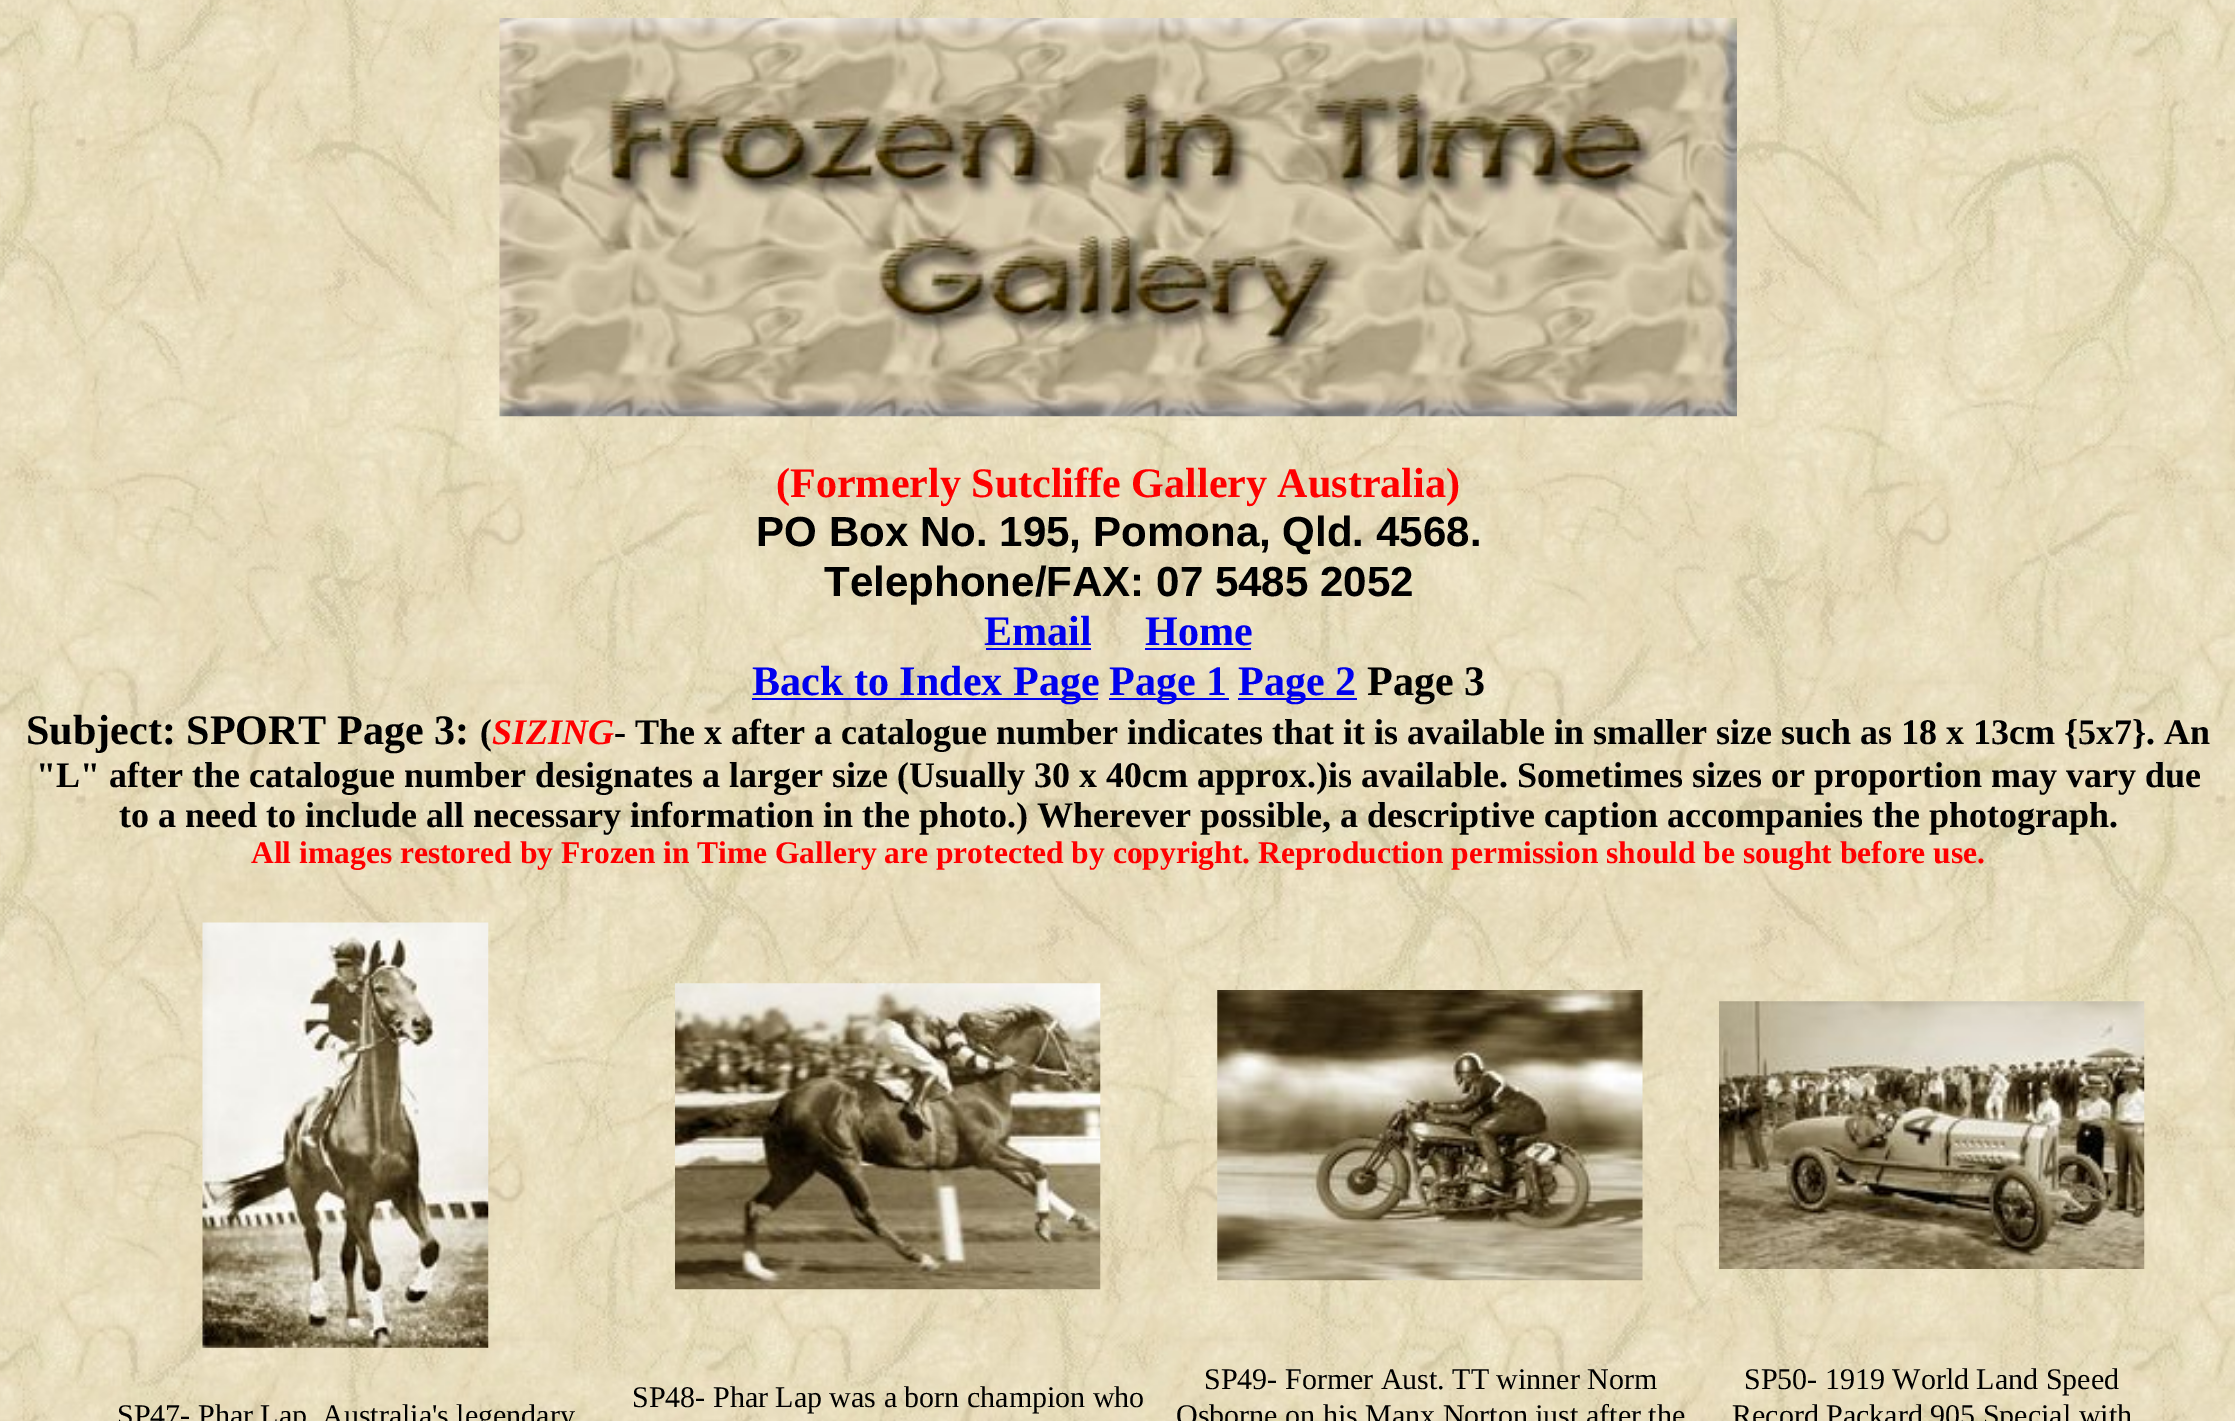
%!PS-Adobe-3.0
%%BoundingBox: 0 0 2235 1421
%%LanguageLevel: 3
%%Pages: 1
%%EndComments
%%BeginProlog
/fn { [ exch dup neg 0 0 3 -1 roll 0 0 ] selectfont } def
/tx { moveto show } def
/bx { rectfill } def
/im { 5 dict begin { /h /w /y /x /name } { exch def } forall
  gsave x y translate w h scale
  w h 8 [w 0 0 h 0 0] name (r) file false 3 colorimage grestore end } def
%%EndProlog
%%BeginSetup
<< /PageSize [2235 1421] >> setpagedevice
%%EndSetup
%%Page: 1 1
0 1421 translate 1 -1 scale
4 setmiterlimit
1 setgray
0 0 2235 1421 bx
(image0.raw) 0 0 2235 1421 im
(image1.raw) 499 18 1238 399 im
/LiberationSerif-Bold 42.1 fn
1 0 0 setrgbcolor
(\(Formerly Sutcliffe Gallery Australia\)) 776 497 tx
/LiberationSans-Bold 42.1 fn
0 setgray
(PO Box No. 195, Pomona, Qld. 4568.) 756 546 tx
(Telephone/FAX: 07 5485 2052) 824 596 tx
/LiberationSerif-Bold 42.1 fn
0 0 0.933 setrgbcolor
(Email) 984 645 tx
986 648 105 2 bx
(Home) 1145 645 tx
1145 648 106 2 bx
752 698 346 2 bx
(Back to Index Page) 752 695 tx
1109 698 120 2 bx
(Page 1) 1109 695 tx
1238 698 119 2 bx
(Page 2) 1238 695 tx
0 setgray
(Page 3) 1367 695 tx
(Subject: SPORT Page 3:) 26 744 tx
/LiberationSerif-Bold 36 fn
(\() 480 744 tx
/LiberationSerif-BoldItalic 36 fn
1 0 0 setrgbcolor
(SIZING) 492 744 tx
/LiberationSerif-Bold 36 fn
0 setgray
(- The x after a catalogue number indicates that it is available in smaller size such as 18 x 13cm {5x7}. An) 614 744 tx
("L" after the catalogue number designates a larger size \(Usually 30 x 40cm approx.\)is available. Sometimes sizes or proportion may vary due) 36 787 tx
(to a need to include all necessary information in the photo.\) Wherever possible, a descriptive caption accompanies the photograph.) 119 827 tx
/LiberationSerif-Bold 31.5 fn
1 0 0 setrgbcolor
(All images restored by Frozen in Time Gallery are protected by copyright. Reproduction permission should be sought before use.) 251 863 tx
(image2.raw) 202 922 287 426 im
(image3.raw) 675 983 426 307 im
(image4.raw) 1217 990 426 291 im
(image5.raw) 1719 1001 426 268 im
/LiberationSerif-Regular 30 fn
0 setgray
(SP47- Phar Lap, Australia's legendary) 117 1425 tx
(SP48- Phar Lap was a born champion who) 632 1407 tx
(SP49- Former Aust. TT winner Norm) 1204 1389 tx
(Osborne on his Manx Norton just after the) 1176 1425 tx
(SP50- 1919 World Land Speed) 1744 1389 tx
(Record Packard 905 Special with) 1732 1425 tx
showpage
%%EOF
